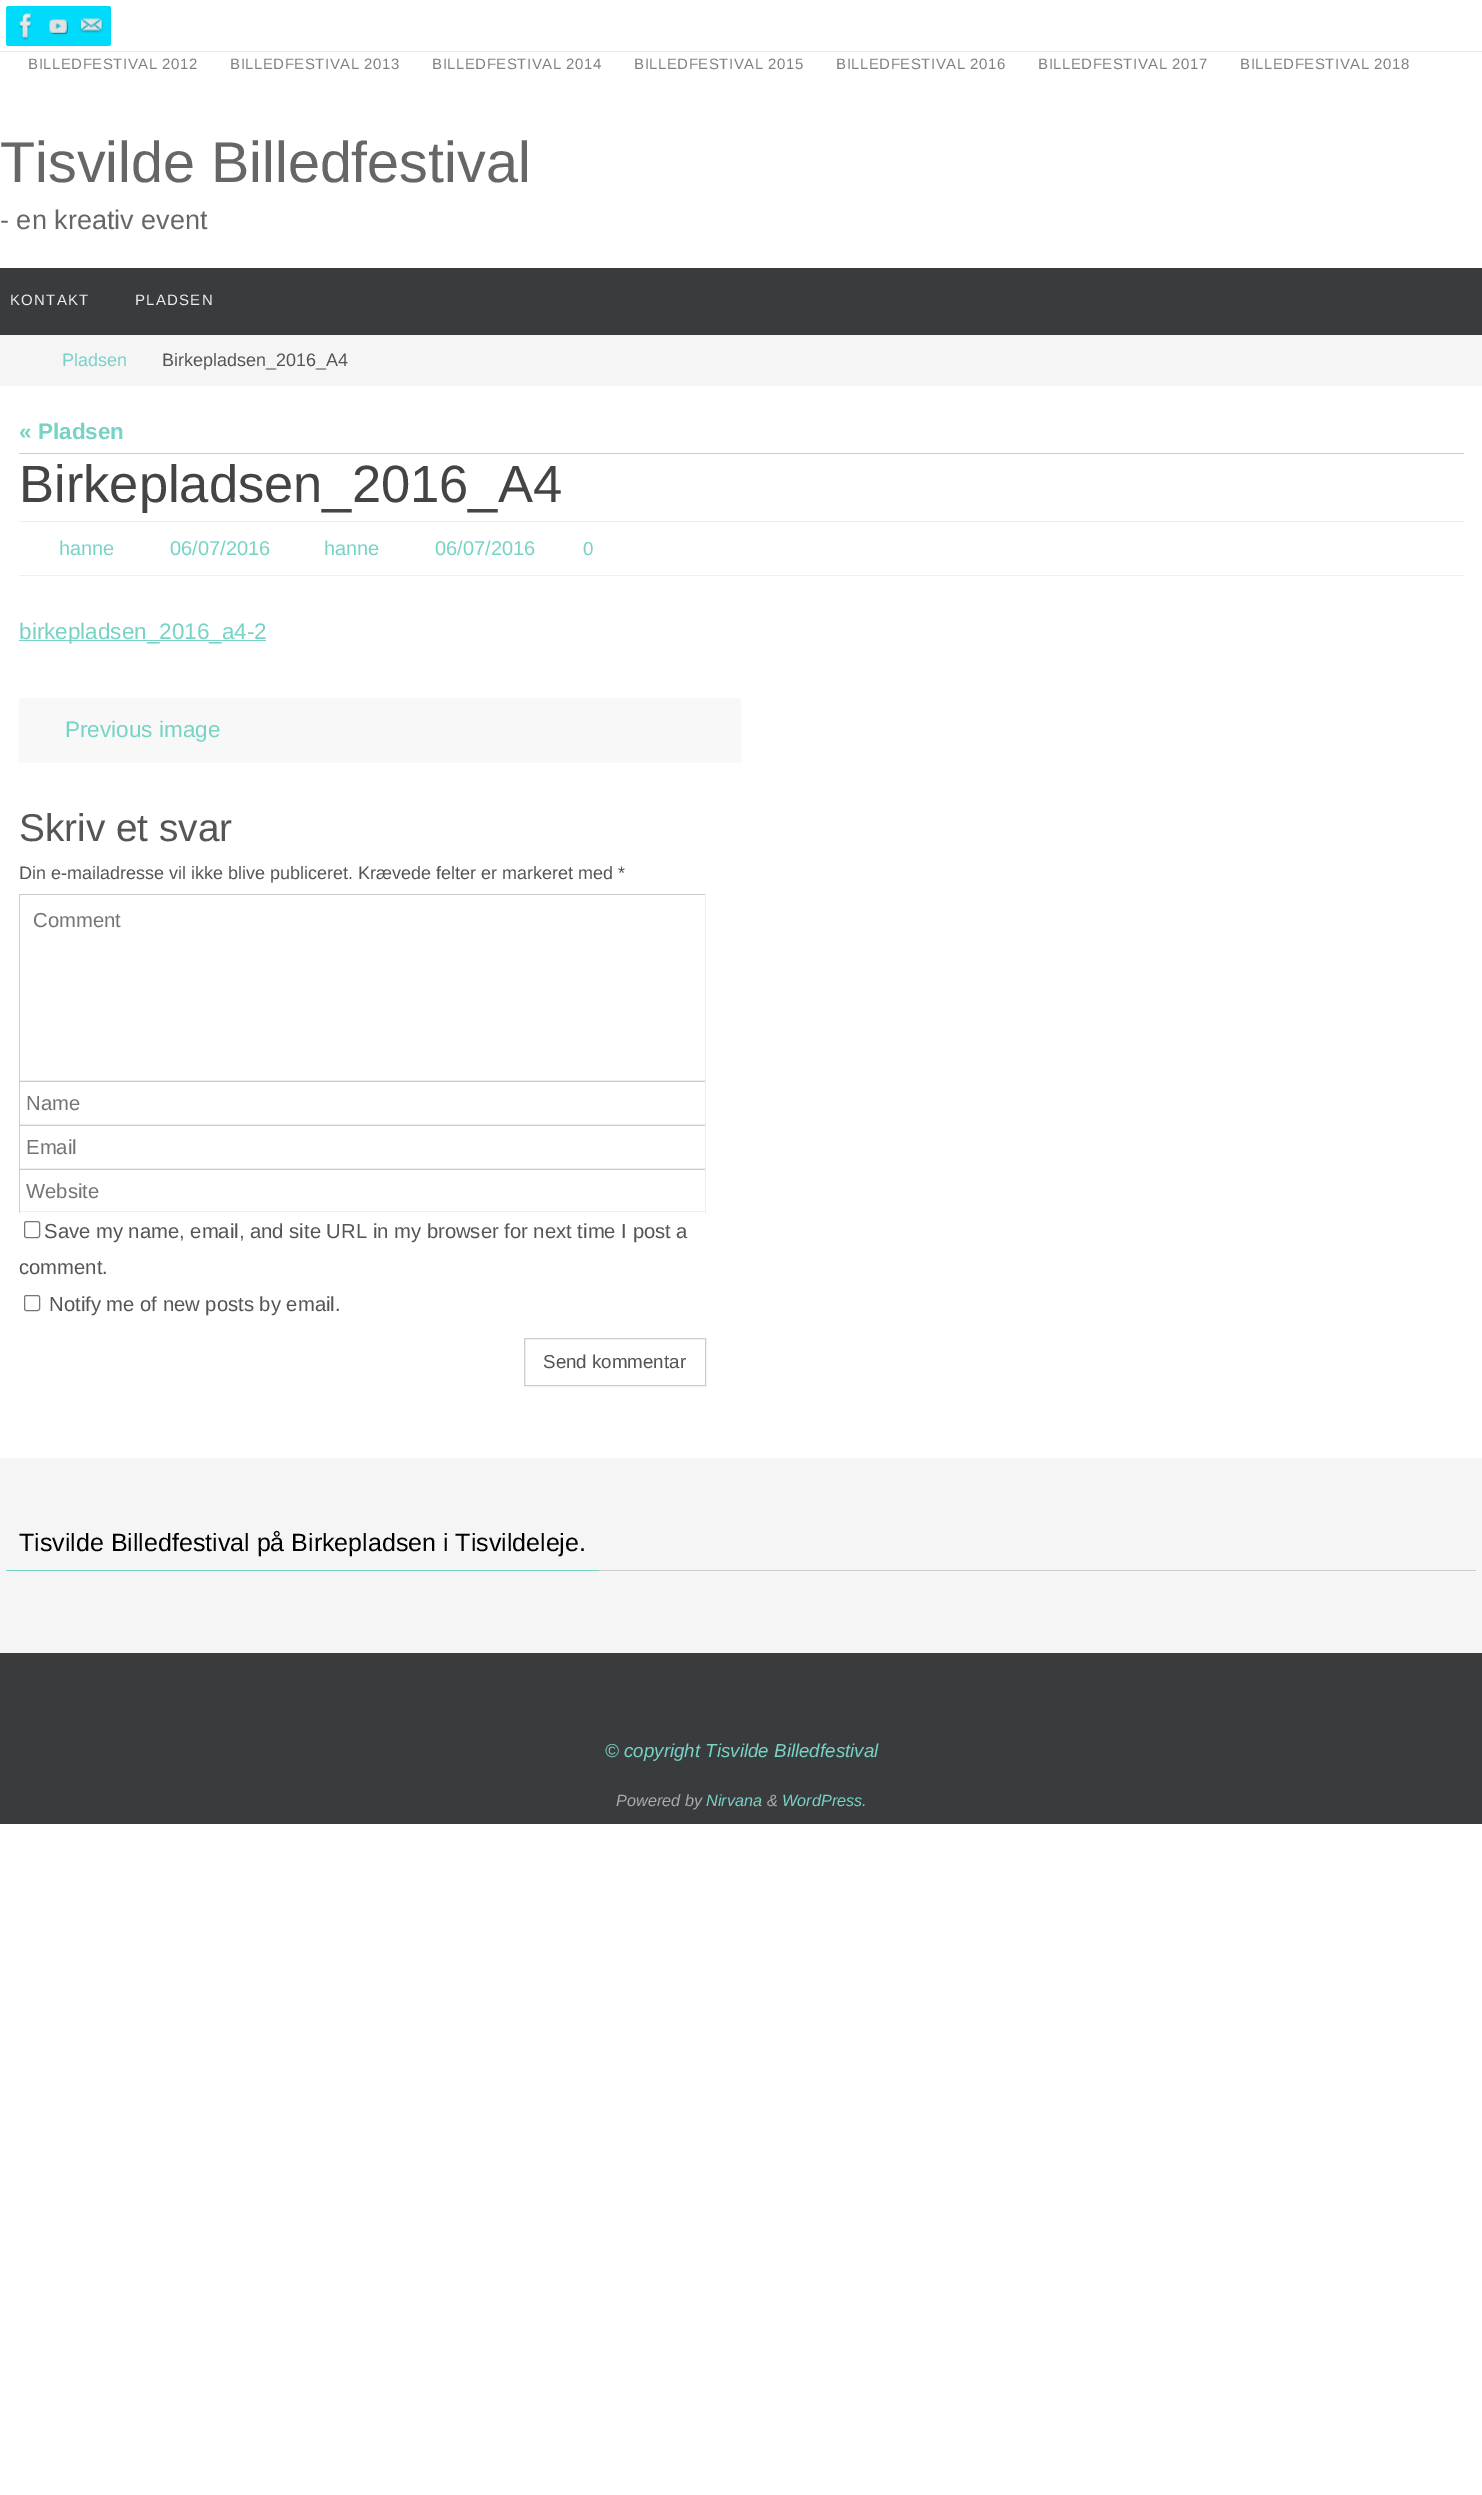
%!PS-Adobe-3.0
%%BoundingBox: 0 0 1482 2495
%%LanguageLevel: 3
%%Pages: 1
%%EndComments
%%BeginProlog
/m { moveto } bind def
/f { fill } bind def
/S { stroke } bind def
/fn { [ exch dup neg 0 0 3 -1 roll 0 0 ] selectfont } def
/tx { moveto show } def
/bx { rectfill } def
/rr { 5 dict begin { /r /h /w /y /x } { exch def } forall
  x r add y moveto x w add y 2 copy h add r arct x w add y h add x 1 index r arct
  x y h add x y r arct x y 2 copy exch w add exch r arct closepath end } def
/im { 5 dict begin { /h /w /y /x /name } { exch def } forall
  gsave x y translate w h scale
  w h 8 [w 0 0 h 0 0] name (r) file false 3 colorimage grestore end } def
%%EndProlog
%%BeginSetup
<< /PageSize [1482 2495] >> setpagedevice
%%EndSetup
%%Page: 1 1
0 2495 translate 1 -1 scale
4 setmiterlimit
1 setgray
0 0 1482 2495 bx
0.922 setgray
0 51 1482 1 bx
0 0.859 0.984 setrgbcolor
6 6 40 40 2.5 rr f
(image0.raw) 18 13 14 27 im
39 6 40 40 2.5 rr f
(image1.raw) 49 19 19 16 im
71 6 40 40 2.5 rr f
(image2.raw) 79 18 24 15 im
/LiberationSans-Regular 15 fn
0.506 setgray
28 69 m 0.5 0 (BILLEDFESTIVAL 2012) ashow
230 69 m 0.5 0 (BILLEDFESTIVAL 2013) ashow
432 69 m 0.5 0 (BILLEDFESTIVAL 2014) ashow
634 69 m 0.5 0 (BILLEDFESTIVAL 2015) ashow
836 69 m 0.5 0 (BILLEDFESTIVAL 2016) ashow
1038 69 m 0.5 0 (BILLEDFESTIVAL 2017) ashow
1240 69 m 0.5 0 (BILLEDFESTIVAL 2018) ashow
/LiberationSans-Regular 57.5 fn
0.4 setgray
(Tisvilde Billedfestival) 0 182 tx
/LiberationSans-Regular 27 fn
(- en kreativ event) 0 229 tx
0.227 0.231 0.239 setrgbcolor
0 268 1482 67 bx
/LiberationSans-Regular 15 fn
0.933 setgray
10 305 m 1.25 0 (KONTAKT) ashow
135 305 m 1.25 0 (PLADSEN) ashow
0.961 setgray
0 335 1482 51 bx
/LiberationSans-Regular 18 fn
0.467 0.827 0.773 setrgbcolor
(Pladsen) 62 366 tx
0.333 setgray
(Birkepladsen_2016_A4) 162 366 tx
0.8 setgray
19 453 1445 1 bx
/LiberationSans-Bold 22.5 fn
0.467 0.827 0.773 setrgbcolor
(« Pladsen) 19 439 tx
/LiberationSans-Regular 52.5 fn
0.267 setgray
(Birkepladsen_2016_A4) 19 502 tx
0.933 setgray
19 521 1445 1 bx
19 575 1445 1 bx
/LiberationSans-Regular 20 fn
0.467 0.827 0.773 setrgbcolor
(hanne) 59 555 tx
(06/07/2016) 170 555 tx
(hanne) 324 555 tx
(06/07/2016) 435 555 tx
/LiberationSans-Regular 18.75 fn
(0) 583 555 tx
19 640 247 1 bx
/LiberationSans-Regular 22.5 fn
(birkepladsen_2016_a4-2) 19 639 tx
0.973 setgray
19 698 722 65 bx
0.467 0.827 0.773 setrgbcolor
(Previous image) 65 737 tx
/LiberationSans-Regular 38.75 fn
0.333 setgray
(Skriv et svar) 19 841 tx
/LiberationSans-Regular 18 fn
(Din e-mailadresse vil ikke blive publiceret. Krævede felter er markeret med *) 19 879 tx
0.8 setgray
19 894 687 1 bx
0.933 setgray
705 894 1 187 bx
19 1080 687 1 bx
0.8 setgray
19 894 1 187 bx
/LiberationSans-Regular 20.25 fn
0.459 setgray
(Comment) 33 927 tx
0.8 setgray
19 1081 687 1 bx
0.933 setgray
705 1081 1 44 bx
19 1124 687 1 bx
0.8 setgray
19 1081 1 44 bx
0.459 setgray
(Name) 26 1110 tx
0.8 setgray
19 1125 687 1 bx
0.933 setgray
705 1125 1 44 bx
19 1168 687 1 bx
0.8 setgray
19 1125 1 44 bx
0.459 setgray
(Email) 26 1154 tx
0.8 setgray
19 1169 687 1 bx
0.933 setgray
705 1169 1 44 bx
19 1211 687 1 bx
0.8 setgray
19 1169 1 44 bx
0.459 setgray
(Website) 26 1198 tx
0.463 setgray
24.5 1221.5 15 16 2 rr S
0.333 setgray
(Save my name, email, and site URL in my browser for next time I post a) 44 1238 tx
(comment.) 19 1274 tx
0.463 setgray
24.5 1295.5 15 15 2 rr S
0.333 setgray
(Notify me of new posts by email.) 49 1311 tx
0.8 setgray
524.5 1338.5 181 47 rectstroke
/LiberationSans-Regular 18.75 fn
0.333 setgray
(Send kommentar) 543 1368 tx
0.961 setgray
0 1458 1482 195 bx
0.8 setgray
599 1570 877 1 bx
0.467 0.827 0.773 setrgbcolor
6 1570 593 1 bx
/LiberationSans-Regular 25 fn
0 setgray
(Tisvilde Billedfestival på Birkepladsen i Tisvildeleje.) 19 1551 tx
0.227 0.231 0.239 setrgbcolor
0 1653 1482 171 bx
/LiberationSans-Italic 18.75 fn
0.467 0.827 0.773 setrgbcolor
(© copyright Tisvilde Billedfestival) 605 1757 tx
/LiberationSans-Italic 16.25 fn
0.667 setgray
(Powered by) 616 1806 tx
0.467 0.827 0.773 setrgbcolor
(Nirvana) 706 1806 tx
0.667 setgray
(&) 767 1806 tx
0.467 0.827 0.773 setrgbcolor
(WordPress.) 782 1806 tx
showpage
%%EOF
